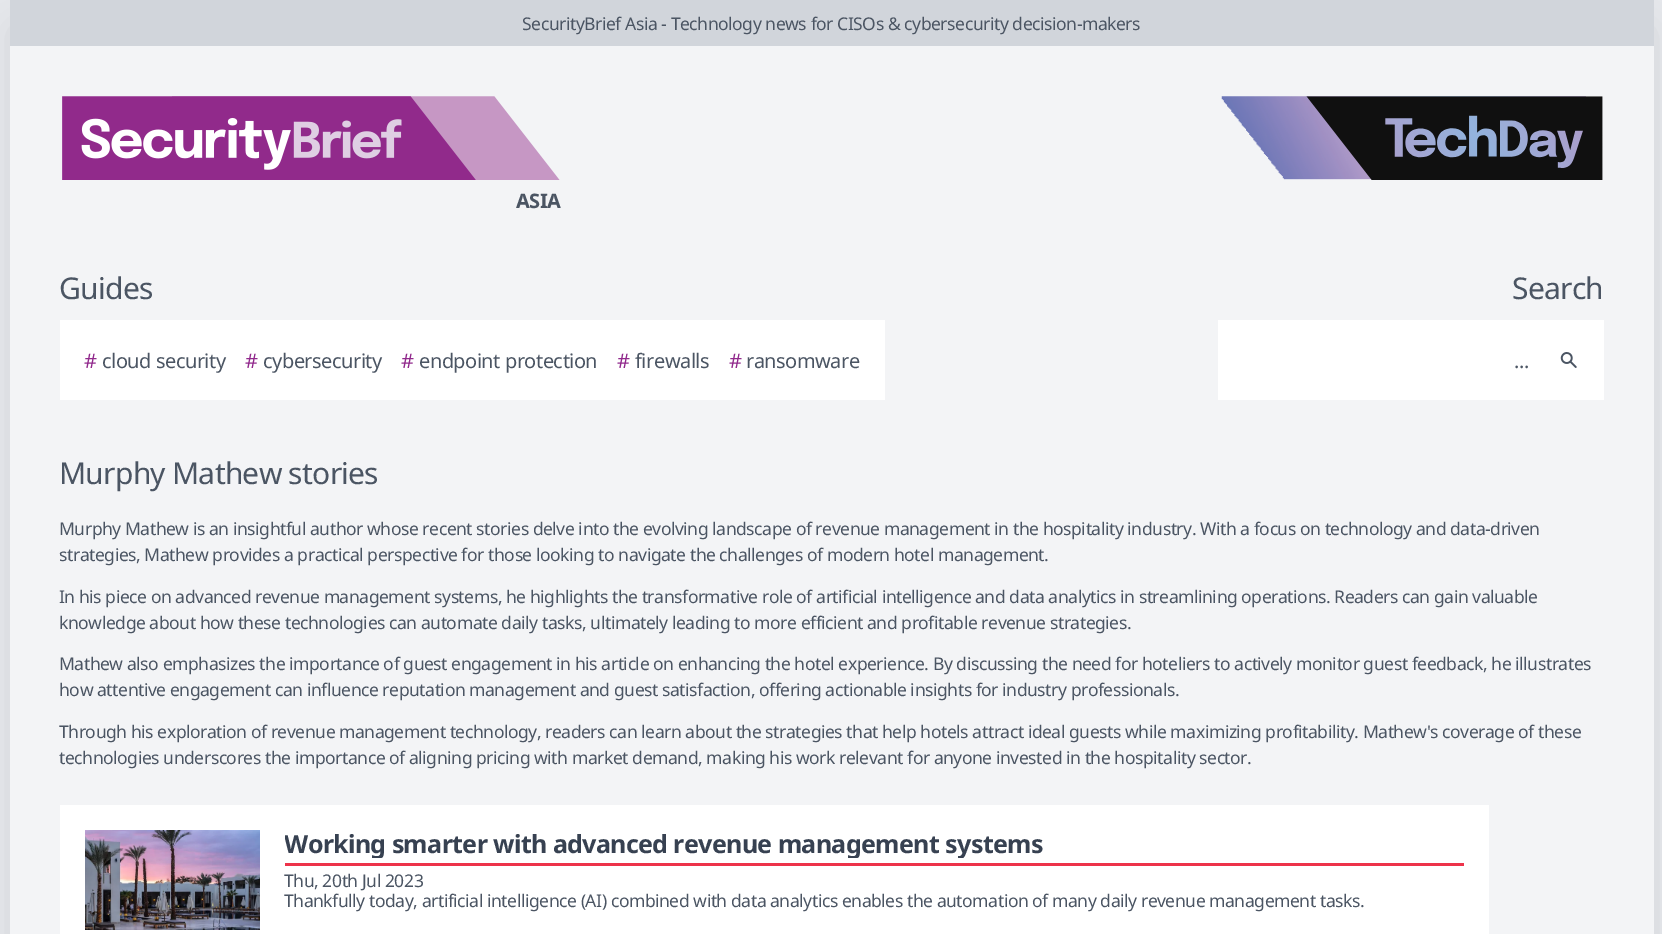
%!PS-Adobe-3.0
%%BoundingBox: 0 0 1662 934
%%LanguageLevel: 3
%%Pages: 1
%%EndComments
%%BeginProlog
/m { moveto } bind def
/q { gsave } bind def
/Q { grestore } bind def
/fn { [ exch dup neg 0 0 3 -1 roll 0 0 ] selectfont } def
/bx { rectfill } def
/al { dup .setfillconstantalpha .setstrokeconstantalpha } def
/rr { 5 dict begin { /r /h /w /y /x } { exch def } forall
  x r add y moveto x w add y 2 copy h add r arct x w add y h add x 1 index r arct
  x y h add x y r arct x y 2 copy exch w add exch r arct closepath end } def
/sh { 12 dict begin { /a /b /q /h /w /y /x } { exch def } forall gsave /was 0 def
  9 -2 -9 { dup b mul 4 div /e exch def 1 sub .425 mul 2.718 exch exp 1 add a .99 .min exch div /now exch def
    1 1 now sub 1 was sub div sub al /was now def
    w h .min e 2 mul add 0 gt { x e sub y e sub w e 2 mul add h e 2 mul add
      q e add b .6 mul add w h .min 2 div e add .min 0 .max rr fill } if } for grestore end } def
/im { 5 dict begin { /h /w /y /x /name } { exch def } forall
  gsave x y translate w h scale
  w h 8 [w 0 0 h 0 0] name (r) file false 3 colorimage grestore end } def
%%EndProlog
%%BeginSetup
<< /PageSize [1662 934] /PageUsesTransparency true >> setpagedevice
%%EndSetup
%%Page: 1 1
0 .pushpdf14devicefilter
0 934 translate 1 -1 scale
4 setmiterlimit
0.898 0.906 0.922 setrgbcolor
0 0 1662 934 bx
0 setgray
16 31 1632 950 0 15.5 0.1 sh
0.953 0.957 0.965 setrgbcolor
10 46 1644 888 bx
0.82 0.835 0.859 setrgbcolor
10 0 1644 46 bx
/NotoSans-Regular 17.5 fn
0.294 0.333 0.388 setrgbcolor
522 30 m -0.44 0 (SecurityBrief Asia - Technology news for CISOs & cybersecurity decision-makers) ashow
(image0.raw) 1221 96 382 84 im
(image1.raw) 62 96 498 84 im
/NotoSans-Bold 20 fn
516 208 m -0.5 0 (ASIA) ashow
/NotoSans-Regular 30 fn
59 299 m -0.75 0 (Guides) ashow
1 setgray
60 320 825 80 bx
/NotoSans-Regular 20 fn
0.569 0.161 0.549 setrgbcolor
84 368 m -0.5 0 (#) ashow
0.294 0.333 0.388 setrgbcolor
102 368 m -0.5 0 (cloud security) ashow
0.569 0.161 0.549 setrgbcolor
245 368 m -0.5 0 (#) ashow
0.294 0.333 0.388 setrgbcolor
263 368 m -0.5 0 (cybersecurity) ashow
0.569 0.161 0.549 setrgbcolor
401 368 m -0.5 0 (#) ashow
0.294 0.333 0.388 setrgbcolor
419 368 m -0.5 0 (endpoint protection) ashow
0.569 0.161 0.549 setrgbcolor
617 368 m -0.5 0 (#) ashow
0.294 0.333 0.388 setrgbcolor
635 368 m -0.5 0 (firewalls) ashow
0.569 0.161 0.549 setrgbcolor
729 368 m -0.5 0 (#) ashow
0.294 0.333 0.388 setrgbcolor
746 368 m -0.5 0 (ransomware) ashow
/NotoSans-Regular 30 fn
1512 299 m -0.75 0 (Search) ashow
1 setgray
1218 320 386 80 bx
/NotoSans-Regular 20 fn
0.294 0.333 0.388 setrgbcolor
1514 368 m -0.5 0 (...) ashow
(image2.raw) 1560 352 17 16 im
/NotoSans-Regular 30 fn
59 484 m -0.75 0 (Murphy Mathew stories) ashow
/NotoSans-Regular 17.5 fn
59 535 m -0.44 0 (Murphy Mathew is an insightful author whose recent stories delve into the evolving landscape of revenue management in the hospitality industry. With a focus on technology and data-driven) ashow
59 561 m -0.44 0 (strategies, Mathew provides a practical perspective for those looking to navigate the challenges of modern hotel management.) ashow
59 603 m -0.44 0 (In his piece on advanced revenue management systems, he highlights the transformative role of artificial intelligence and data analytics in streamlining operations. Readers can gain valuable) ashow
59 629 m -0.44 0 (knowledge about how these technologies can automate daily tasks, ultimately leading to more efficient and profitable revenue strategies.) ashow
59 670 m -0.44 0 (Mathew also emphasizes the importance of guest engagement in his article on enhancing the hotel experience. By discussing the need for hoteliers to actively monitor guest feedback, he illustrates) ashow
59 696 m -0.44 0 (how attentive engagement can influence reputation management and guest satisfaction, offering actionable insights for industry professionals.) ashow
59 738 m -0.44 0 (Through his exploration of revenue management technology, readers can learn about the strategies that help hotels attract ideal guests while maximizing profitability. Mathew's coverage of these) ashow
59 764 m -0.44 0 (technologies underscores the importance of aligning pricing with market demand, making his work relevant for anyone invested in the hospitality sector.) ashow
1 setgray
60 805 1429 129 bx
(image3.raw) 85 830 175 100 im
q
285 830 1179 28 rectclip
/NotoSans-Bold 25 fn
0.216 0.255 0.318 setrgbcolor
284 853 m -0.62 0 (Working smarter with advanced revenue management systems) ashow
Q
0.929 0.2 0.29 setrgbcolor
285 863 1179 3 bx
0.294 0.333 0.388 setrgbcolor
284 887 m -0.44 0 (Thu, 20th Jul 2023) ashow
284 907 m -0.44 0 (Thankfully today, artificial intelligence \(AI\) combined with data analytics enables the automation of many daily revenue management tasks.) ashow
.poppdf14devicefilter showpage
%%EOF
